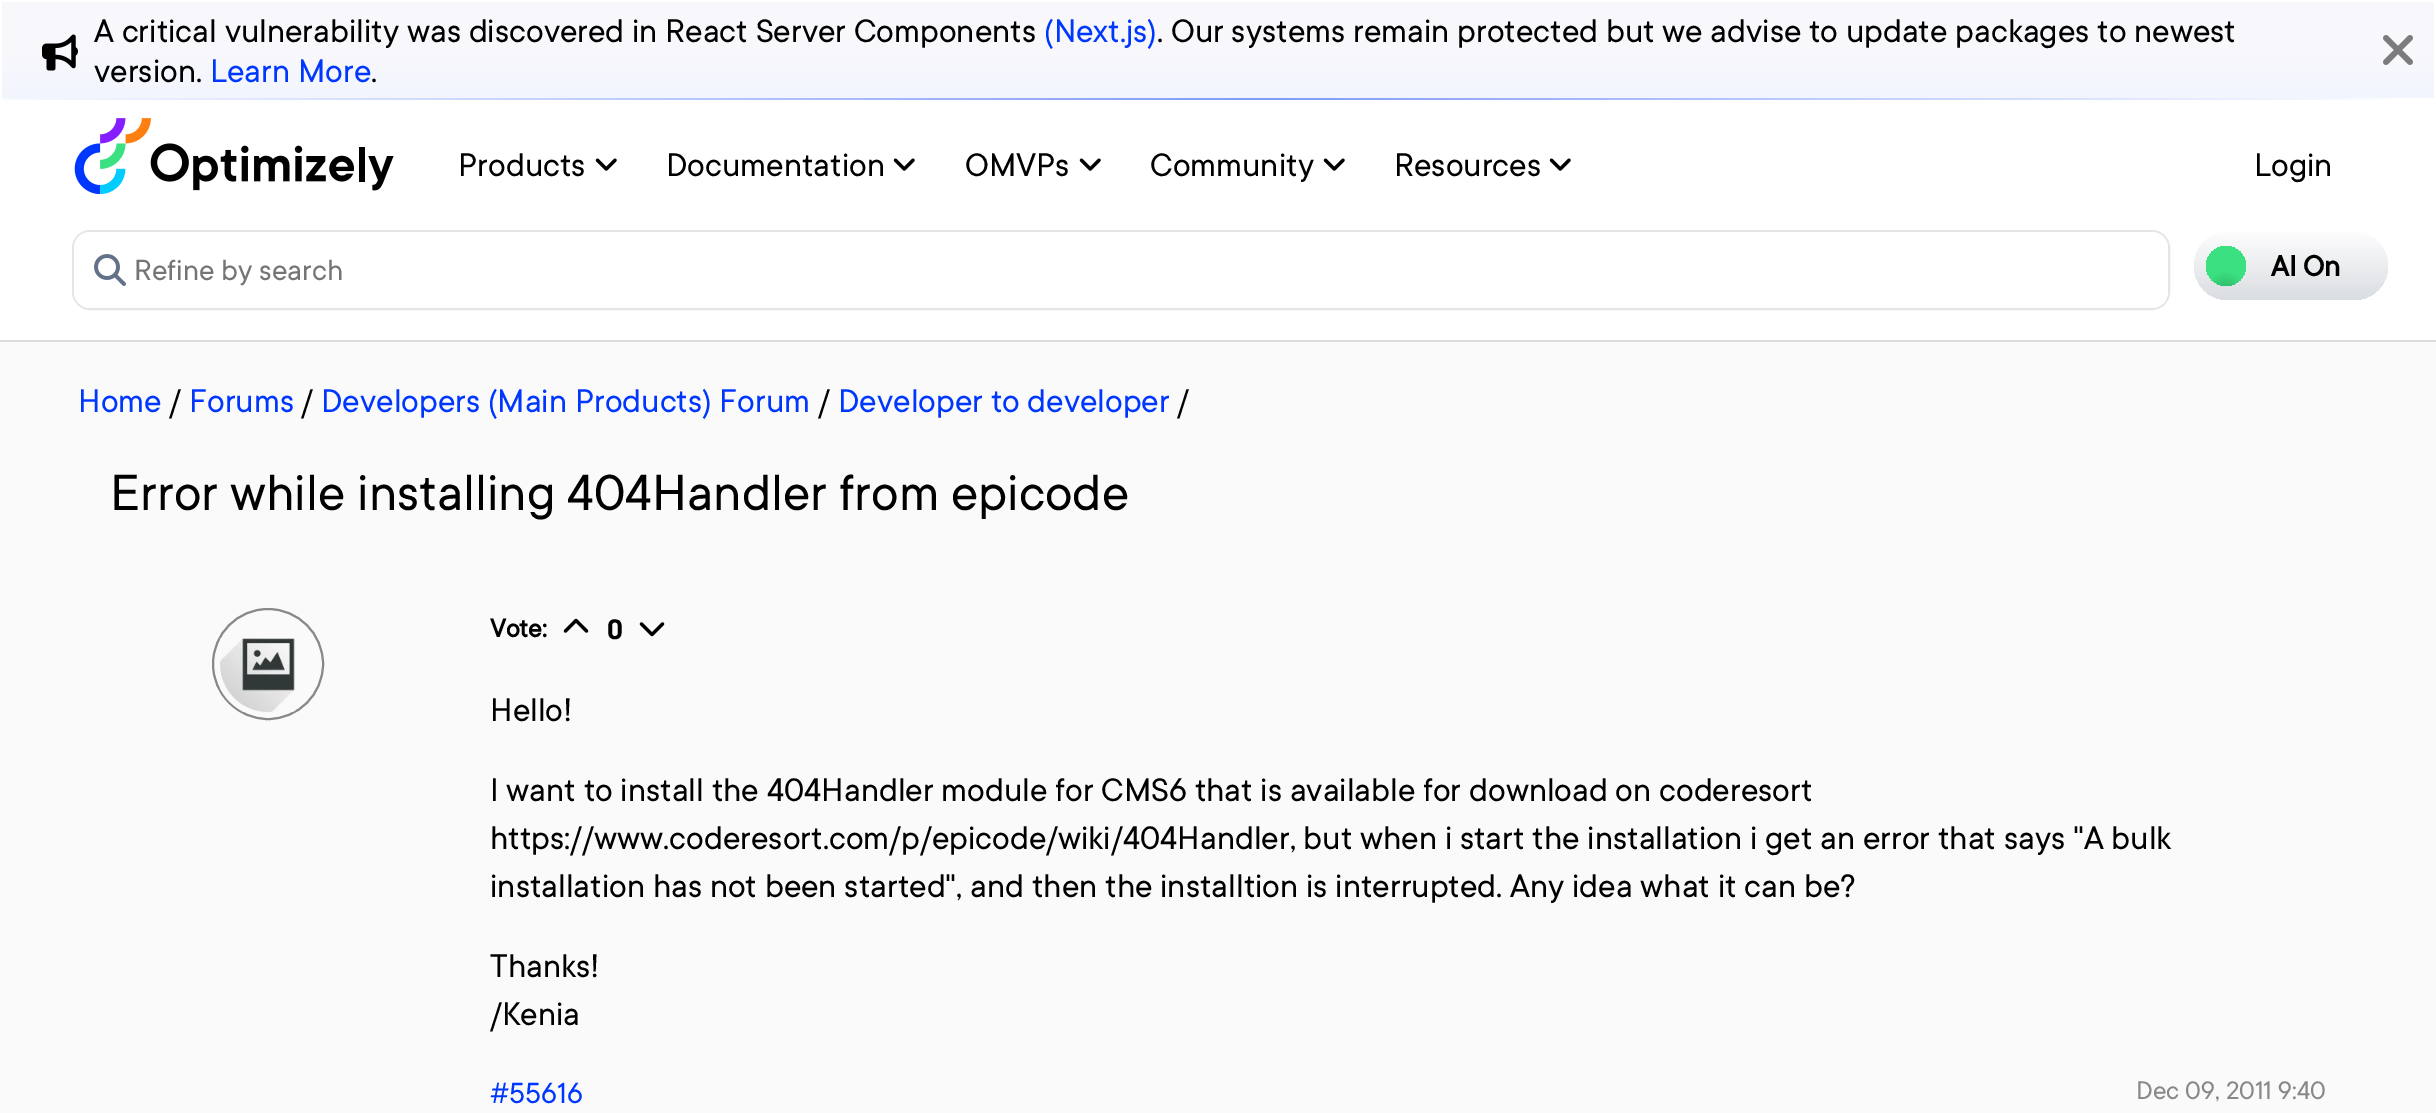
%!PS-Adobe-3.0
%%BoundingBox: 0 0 2436 1113
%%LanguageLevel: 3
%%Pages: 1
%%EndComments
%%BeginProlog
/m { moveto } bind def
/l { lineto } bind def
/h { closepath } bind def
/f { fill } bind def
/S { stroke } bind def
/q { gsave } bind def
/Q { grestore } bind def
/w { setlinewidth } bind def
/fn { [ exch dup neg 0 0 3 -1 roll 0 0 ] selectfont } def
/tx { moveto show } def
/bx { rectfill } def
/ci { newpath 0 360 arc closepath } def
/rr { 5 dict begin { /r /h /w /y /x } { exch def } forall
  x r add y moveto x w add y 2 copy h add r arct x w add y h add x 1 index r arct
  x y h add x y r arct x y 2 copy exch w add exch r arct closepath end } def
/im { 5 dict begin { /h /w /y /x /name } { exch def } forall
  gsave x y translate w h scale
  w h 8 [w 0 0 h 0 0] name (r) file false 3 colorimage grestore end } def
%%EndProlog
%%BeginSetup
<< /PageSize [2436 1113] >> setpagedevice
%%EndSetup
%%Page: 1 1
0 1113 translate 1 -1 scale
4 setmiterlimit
0.98 setgray
0 0 2436 1113 bx
1 setgray
0 0 2436 340 bx
(image0.raw) 2 98 2387 2 im
q 2 2 m 2434 2 l 2434 98 l 2 98 l h clip newpath
<< /ShadingType 2 /ColorSpace /DeviceRGB /Coords [1218 1.8 1218 118] /Extend [true true] /Function << /FunctionType 3 /Domain [0 1] /Functions [<< /FunctionType 2 /Domain [0 1] /C0 [0.973 0.973 0.988] /C1 [0.973 0.973 0.988] /N 1 >> << /FunctionType 2 /Domain [0 1] /C0 [0.973 0.973 0.988] /C1 [0.941 0.957 1] /N 1 >>] /Bounds [0.42] /Encode [0 1 0 1] >> >> shfill Q
(image1.raw) 42 34 36 37 im
/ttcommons-Regular 36 fn
0 setgray
(A critical vulnerability was discovered in React Server Components) 94 42 tx
0 0.216 1 setrgbcolor
(\(Next.js\)) 1044 42 tx
0 setgray
(. Our systems remain protected but we advise to update packages to newest) 1157 42 tx
(version.) 94 82 tx
0 0.216 1 setrgbcolor
(Learn More) 210 82 tx
0 setgray
(.) 371 82 tx
(image2.raw) 2383 35 30 30 im
0.867 setgray
0 340 2436 2 bx
(image3.raw) 74 118 320 76 im
0 setgray
(Products) 458 176 tx
(image4.raw) 595 158 22 13 im
(Documentation) 666 176 tx
(image4.raw) 893 158 22 13 im
(OMVPs) 965 176 tx
(image4.raw) 1079 158 22 13 im
(Community) 1150 176 tx
(image4.raw) 1323 158 22 13 im
(Resources) 1394 176 tx
(image4.raw) 1549 158 22 13 im
(Login) 2254 176 tx
0.898 setgray
2 w
73 231 2096 78 17 rr S
1 setgray
74 232 2094 76 16 rr f
(image5.raw) 94 254 32 32 im
/ttcommons-Regular 32 fn
0.459 setgray
(Refine by search) 134 280 tx
q 2194 232 194 68 34 rr clip newpath
<< /ShadingType 2 /ColorSpace /DeviceRGB /Coords [2291 232 2291 300] /Extend [true true] /Function << /FunctionType 2 /Domain [0 1] /C0 [0.992 0.992 0.996] /C1 [0.855 0.867 0.882] /N 1 >> >> shfill Q
q 2226 266 20 ci clip newpath 2226 291 translate 45 45 scale
<< /ShadingType 3 /ColorSpace /DeviceRGB /Coords [0 0 0 0 0 1] /Extend [true true] /Function << /FunctionType 3 /Domain [0 1] /Functions [<< /FunctionType 2 /Domain [0 1] /C0 [0.184 0.702 0.404] /C1 [0.231 0.878 0.506] /N 1 >> << /FunctionType 2 /Domain [0 1] /C0 [0.231 0.878 0.506] /C1 [0.231 0.878 0.506] /N 1 >>] /Bounds [0.44] /Encode [0 1 0 1] >> >> shfill Q
/ttcommons-Bold 32 fn
0 setgray
(AI On) 2271 276 tx
/ttcommons-Regular 36 fn
0 0.216 1 setrgbcolor
(Home) 78 412 tx
0 setgray
(/) 169 412 tx
0 0.216 1 setrgbcolor
(Forums) 189 412 tx
0 setgray
(/) 301 412 tx
0 0.216 1 setrgbcolor
(Developers \(Main Products\) Forum) 321 412 tx
0 setgray
(/) 818 412 tx
0 0.216 1 setrgbcolor
(Developer to developer) 838 412 tx
0 setgray
(/) 1177 412 tx
/ttcommons-Regular 56 fn
(Error while installing 404Handler from epicode) 110 510 tx
0.533 setgray
268 664 55 ci S
(image6.raw) 220 638 76 74 im
/ttcommons-Bold 28 fn
0 setgray
(Vote:) 490 637 tx
(image7.raw) 563 618 26 15 im
/Barlow-Bold 28 fn
(0) 607 639 tx
(image8.raw) 639 622 26 15 im
/ttcommons-Regular 36 fn
(Hello!) 490 721 tx
(I want to install the 404Handler module for CMS6 that is available for download on coderesort) 490 801 tx
(https://www.coderesort.com/p/epicode/wiki/404Handler, but when i start the installation i get an error that says "A bulk) 490 849 tx
(installation has not been started", and then the installtion is interrupted. Any idea what it can be?) 490 897 tx
(Thanks!) 490 977 tx
(/Kenia) 490 1025 tx
/ttcommons-Regular 32 fn
0 0.216 1 setrgbcolor
(#55616) 490 1103 tx
/ttcommons-Regular 28 fn
0.533 setgray
(Dec 09, 2011 9:40) 2136 1099 tx
showpage
%%EOF
